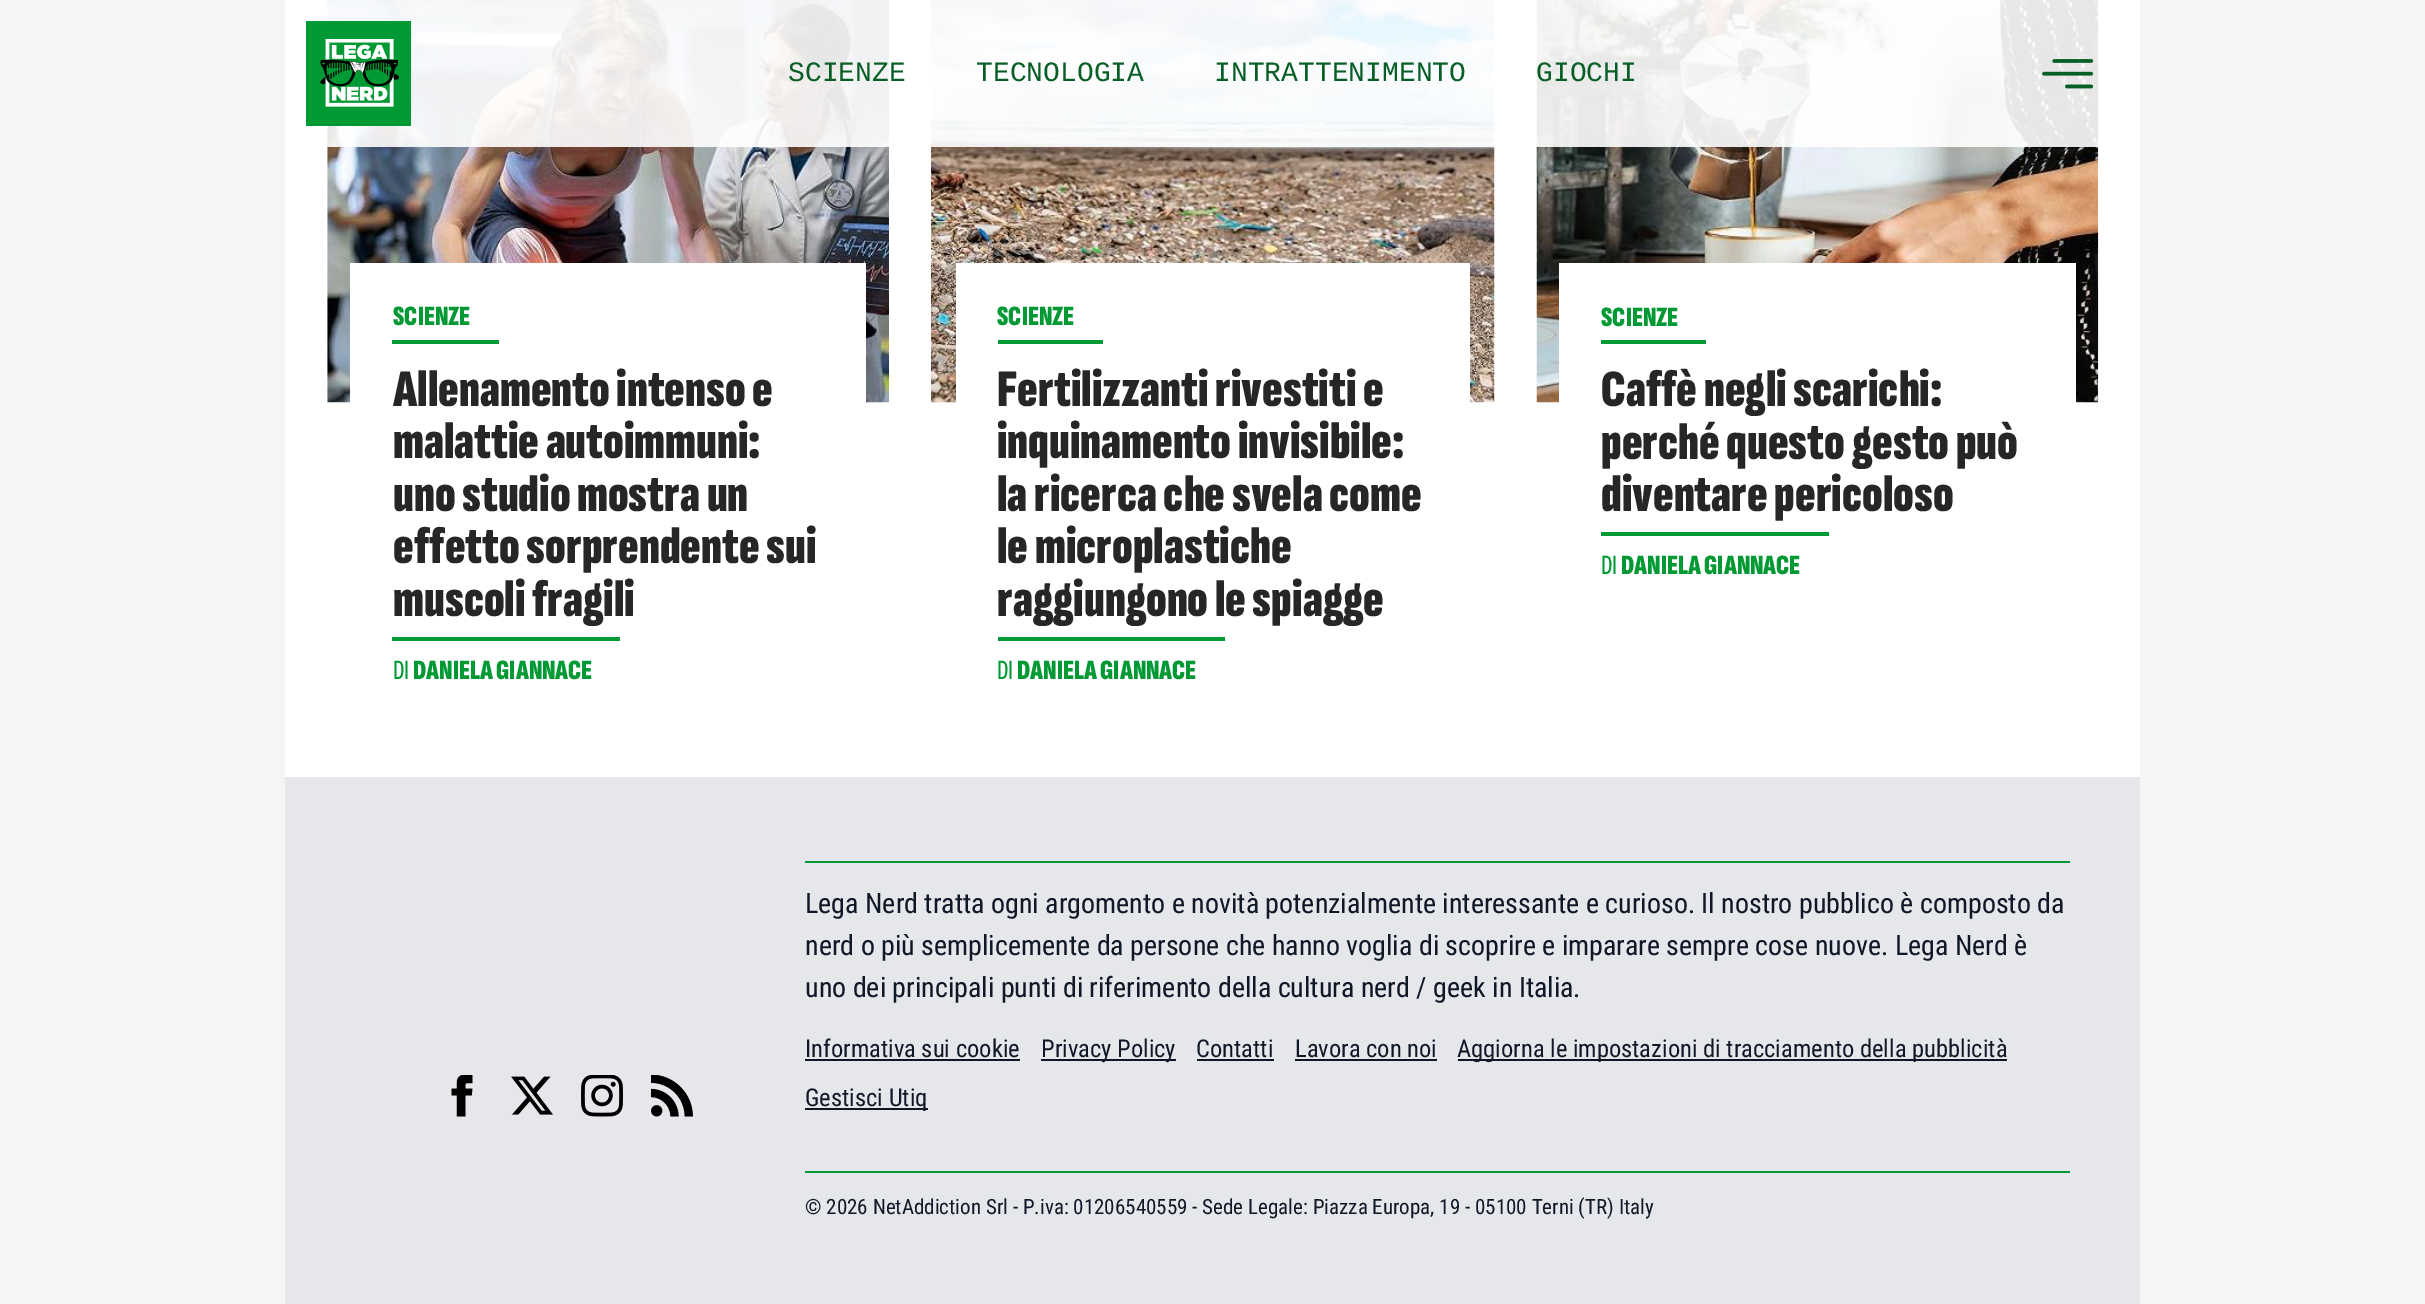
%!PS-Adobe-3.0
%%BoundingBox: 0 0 2425 1304
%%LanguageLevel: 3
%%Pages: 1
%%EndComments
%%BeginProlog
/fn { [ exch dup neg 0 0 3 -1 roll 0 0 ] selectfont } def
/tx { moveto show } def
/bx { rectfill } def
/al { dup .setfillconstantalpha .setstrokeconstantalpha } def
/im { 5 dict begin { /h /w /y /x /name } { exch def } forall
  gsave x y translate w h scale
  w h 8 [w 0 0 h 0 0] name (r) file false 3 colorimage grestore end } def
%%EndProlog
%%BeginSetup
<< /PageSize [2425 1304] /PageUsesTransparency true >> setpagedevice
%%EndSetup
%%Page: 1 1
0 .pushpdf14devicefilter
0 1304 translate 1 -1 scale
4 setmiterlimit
0.961 setgray
0 0 2425 1304 bx
1 setgray
285 0 1855 777 bx
(image2.raw) 327 0 562 403 im
(image3.raw) 931 0 564 403 im
(image4.raw) 1536 0 563 403 im
0.9 al
327 0 1772 147 bx
1 al
0 0.6 0.2 setrgbcolor
306 21 105 105 bx
(image0.raw) 320 39 79 68 im
/LiberationMono-Regular 28 fn
0.031 0.373 0.149 setrgbcolor
(SCIENZE) 788 81 tx
(TECNOLOGIA) 976 81 tx
(INTRATTENIMENTO) 1214 81 tx
(GIOCHI) 1536 81 tx
(image1.raw) 2042 59 52 30 im
1 setgray
350 263 516 140 bx
0 0.6 0.2 setrgbcolor
392 340 107 4 bx
/SofiaSansExtraCondensed-Black 28 fn
(SCIENZE) 393 325 tx
/SofiaSansExtraCondensed-Black 52.5 fn
0.149 setgray
(Allenamento intenso e) 393 406 tx
(malattie autoimmuni:) 393 458 tx
(uno studio mostra un) 393 511 tx
(effetto sorprendente sui) 393 563 tx
(muscoli fragili) 393 616 tx
/SofiaSansExtraCondensed-Medium 28 fn
0 0.6 0.2 setrgbcolor
(DI) 393 679 tx
392 637 228 4 bx
/SofiaSansExtraCondensed-Black 28 fn
(DANIELA GIANNACE) 413 679 tx
1 setgray
956 263 514 140 bx
0 0.6 0.2 setrgbcolor
998 340 105 4 bx
(SCIENZE) 997 325 tx
/SofiaSansExtraCondensed-Black 52.5 fn
0.149 setgray
(Fertilizzanti rivestiti e) 997 406 tx
(inquinamento invisibile:) 997 458 tx
(la ricerca che svela come) 997 511 tx
(le microplastiche) 997 563 tx
(raggiungono le spiagge) 997 616 tx
/SofiaSansExtraCondensed-Medium 28 fn
0 0.6 0.2 setrgbcolor
(DI) 997 679 tx
998 637 227 4 bx
/SofiaSansExtraCondensed-Black 28 fn
(DANIELA GIANNACE) 1017 679 tx
1 setgray
1559 263 517 140 bx
0 0.6 0.2 setrgbcolor
1601 340 105 4 bx
(SCIENZE) 1601 326 tx
/SofiaSansExtraCondensed-Black 52.5 fn
0.149 setgray
(Caffè negli scarichi:) 1601 406 tx
(perché questo gesto può) 1601 459 tx
(diventare pericoloso) 1601 511 tx
/SofiaSansExtraCondensed-Medium 28 fn
0 0.6 0.2 setrgbcolor
(DI) 1601 574 tx
1601 532 228 4 bx
/SofiaSansExtraCondensed-Black 28 fn
(DANIELA GIANNACE) 1621 574 tx
0.898 0.906 0.922 setrgbcolor
285 777 1855 527 bx
(image5.raw) 451 1075 22 42 im
(image6.raw) 511 1076 42 39 im
(image7.raw) 581 1075 42 42 im
(image8.raw) 651 1075 42 42 im
0 0.6 0.2 setrgbcolor
805 861 1265 2 bx
805 1171 1265 2 bx
/RobotoCondensed-Regular 28 fn
0.063 0.094 0.157 setrgbcolor
(Lega Nerd tratta ogni argomento e novità potenzialmente interessante e curioso. Il nostro pubblico è composto da) 805 913 tx
(nerd o più semplicemente da persone che hanno voglia di scoprire e imparare sempre cose nuove. Lega Nerd è) 805 955 tx
(uno dei principali punti di riferimento della cultura nerd / geek in Italia.) 805 997 tx
/RobotoCondensed-Regular 24.5 fn
(Informativa sui cookie) 805 1057 tx
805 1059 215 2 bx
1041 1059 135 2 bx
(Privacy Policy) 1041 1057 tx
(Contatti) 1196 1057 tx
1197 1059 77 2 bx
(Lavora con noi) 1295 1057 tx
1295 1059 142 2 bx
1458 1059 549 2 bx
(Aggiorna le impostazioni di tracciamento della pubblicità) 1457 1057 tx
805 1108 123 2 bx
(Gestisci Utiq) 805 1106 tx
/RobotoCondensed-Regular 21 fn
(© 2026 NetAddiction Srl - P.iva: 01206540559 - Sede Legale: Piazza Europa, 19 - 05100 Terni \(TR\) Italy) 805 1214 tx
.poppdf14devicefilter showpage
%%EOF
